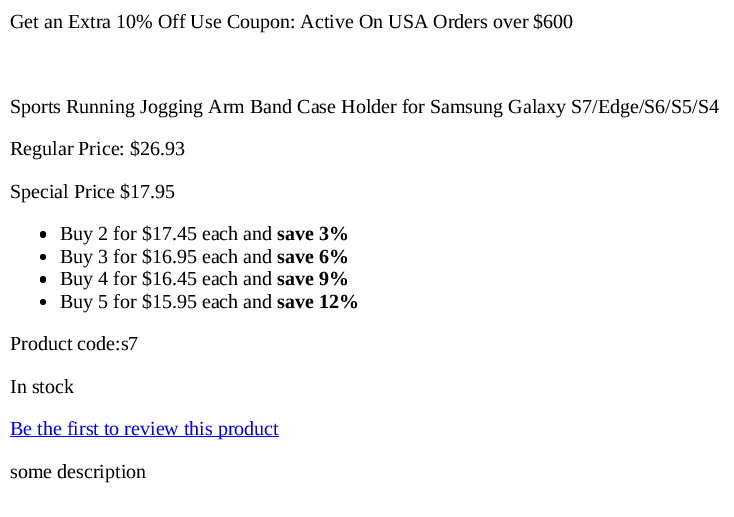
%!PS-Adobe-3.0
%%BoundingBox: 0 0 734 517
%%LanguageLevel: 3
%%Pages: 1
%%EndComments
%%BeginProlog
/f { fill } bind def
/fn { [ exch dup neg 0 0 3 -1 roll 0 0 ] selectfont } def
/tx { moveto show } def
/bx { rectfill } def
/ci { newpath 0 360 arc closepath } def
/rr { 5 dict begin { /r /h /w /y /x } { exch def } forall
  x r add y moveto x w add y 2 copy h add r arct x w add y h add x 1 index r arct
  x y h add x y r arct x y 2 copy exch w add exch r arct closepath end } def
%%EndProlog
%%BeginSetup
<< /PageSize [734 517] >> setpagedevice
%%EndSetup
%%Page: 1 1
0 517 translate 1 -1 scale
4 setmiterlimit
1 setgray
0 0 734 517 bx
/LiberationSerif-Regular 20 fn
0 setgray
(Get an Extra 10% Off Use Coupon: Active On USA Orders over $600) 10 28 tx
(Sports Running Jogging Arm Band Case Holder for Samsung Galaxy S7/Edge/S6/S5/S4) 10 113 tx
(Regular Price: $26.93) 10 155 tx
(Special Price $17.95) 10 198 tx
40 231 6 7 3 rr f
(Buy 2 for $17.45 each and) 60 240 tx
/LiberationSerif-Bold 20 fn
(save 3%) 277 240 tx
43 257 3 ci f
/LiberationSerif-Regular 20 fn
(Buy 3 for $16.95 each and) 60 263 tx
/LiberationSerif-Bold 20 fn
(save 6%) 277 263 tx
40 276 6 7 3 rr f
/LiberationSerif-Regular 20 fn
(Buy 4 for $16.45 each and) 60 285 tx
/LiberationSerif-Bold 20 fn
(save 9%) 277 285 tx
43 302 3 ci f
/LiberationSerif-Regular 20 fn
(Buy 5 for $15.95 each and) 60 308 tx
/LiberationSerif-Bold 20 fn
(save 12%) 277 308 tx
/LiberationSerif-Regular 20 fn
(Product code:s7) 10 350 tx
(In stock) 10 393 tx
0 0 0.933 setrgbcolor
10 436 269 1 bx
(Be the first to review this product) 10 435 tx
0 setgray
(some description) 10 478 tx
showpage
%%EOF
